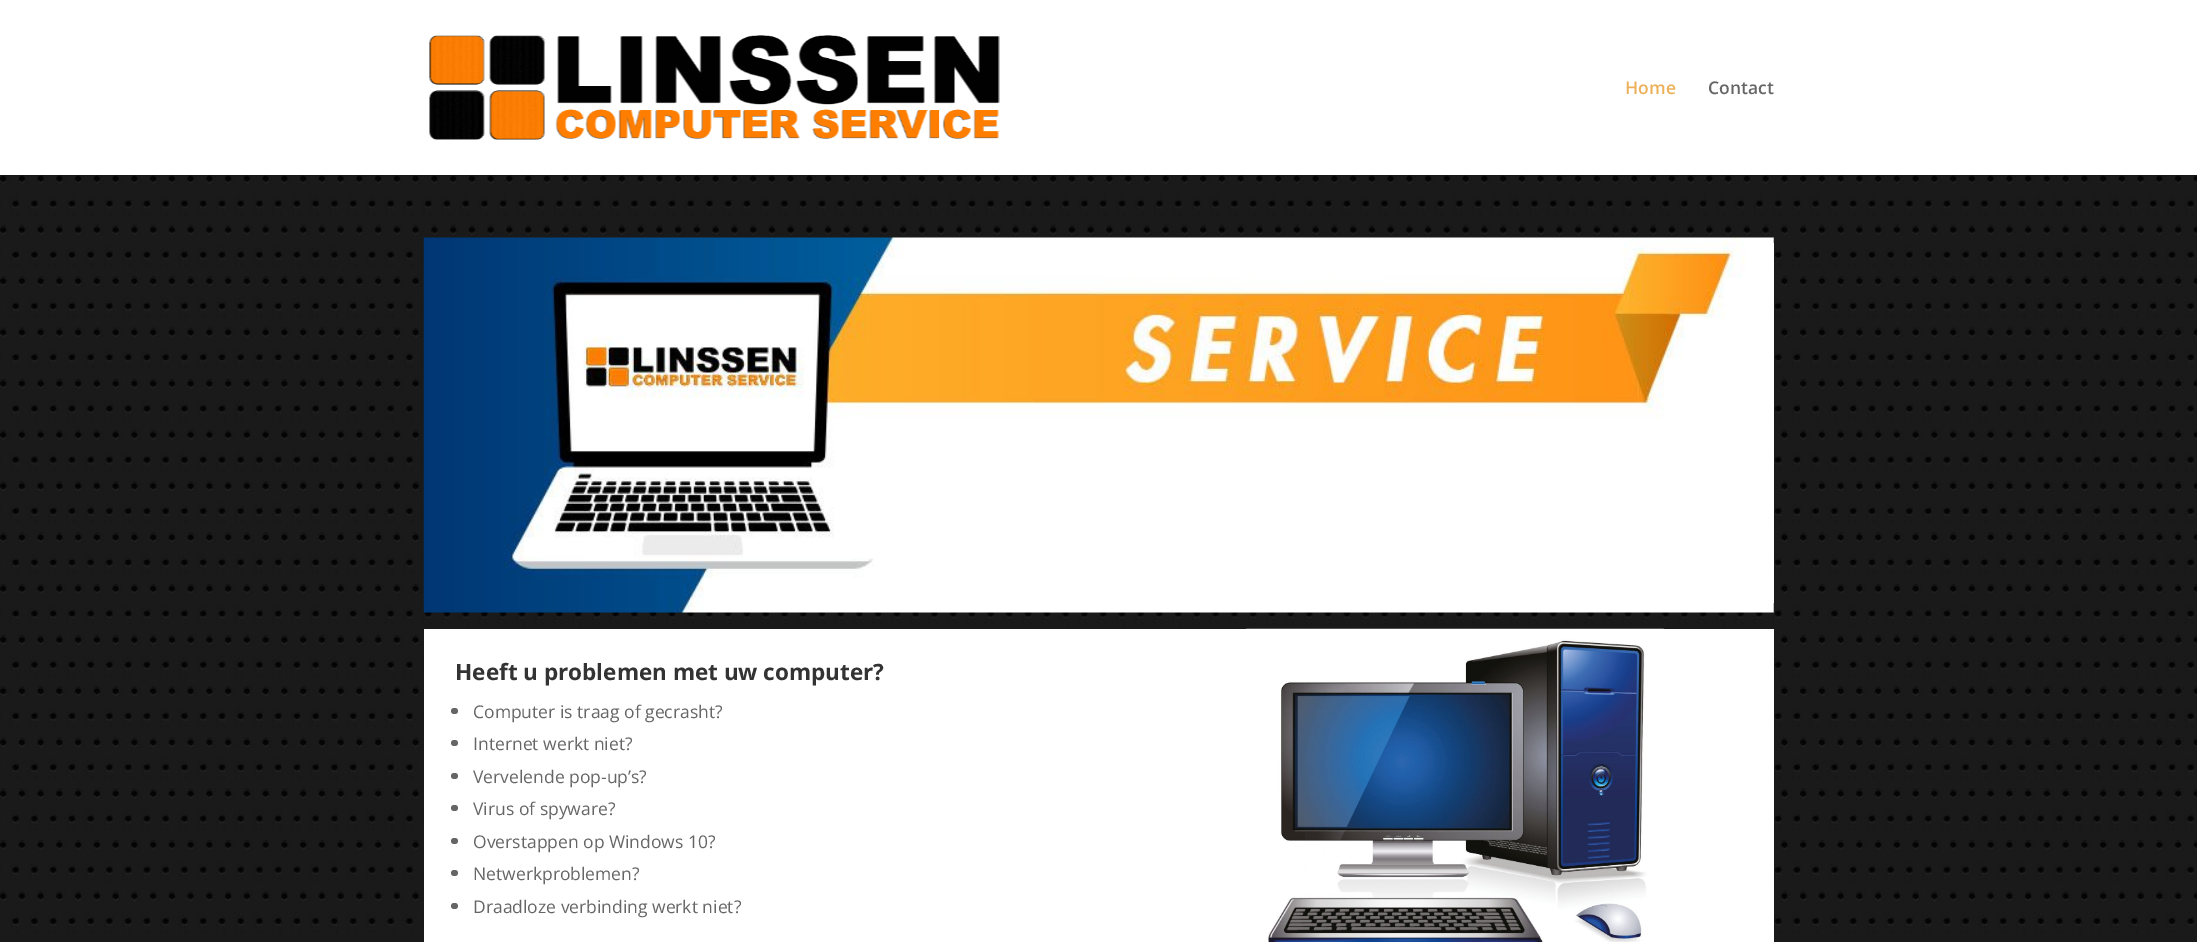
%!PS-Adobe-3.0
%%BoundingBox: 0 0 2197 942
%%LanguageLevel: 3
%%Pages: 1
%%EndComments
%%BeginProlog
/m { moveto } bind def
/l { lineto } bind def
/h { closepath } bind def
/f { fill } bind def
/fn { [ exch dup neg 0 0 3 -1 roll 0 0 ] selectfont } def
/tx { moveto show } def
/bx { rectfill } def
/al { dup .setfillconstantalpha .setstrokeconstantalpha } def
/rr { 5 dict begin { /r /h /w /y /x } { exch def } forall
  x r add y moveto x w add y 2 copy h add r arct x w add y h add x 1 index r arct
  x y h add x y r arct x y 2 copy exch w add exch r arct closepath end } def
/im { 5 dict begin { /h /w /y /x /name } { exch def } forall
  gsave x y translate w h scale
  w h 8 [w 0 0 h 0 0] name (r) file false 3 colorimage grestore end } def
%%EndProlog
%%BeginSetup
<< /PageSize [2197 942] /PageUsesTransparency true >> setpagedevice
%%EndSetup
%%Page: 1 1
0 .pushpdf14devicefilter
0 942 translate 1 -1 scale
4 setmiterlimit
1 setgray
0 0 2197 942 bx
(image1.raw) 0 175 2197 767 im
0.1 al
0 setgray
0 175 m 0 176 l 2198 176 l 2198 1 l 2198 175 l h f
1 al
(image0.raw) 429 35 571 105 im
/OpenSans-SemiBold 17.5 fn
0.929 0.69 0.349 setrgbcolor
(Home) 1625 94 tx
0.4 setgray
(Contact) 1708 94 tx
(image2.raw) 423 237 1351 376 im
1 setgray
424 629 1350 313 bx
/OpenSans-Bold 22.5 fn
0.2 setgray
(Heeft u problemen met uw computer?) 455 680 tx
0.4 setgray
451 708 7 6 3 rr f
/OpenSans-Regular 17.5 fn
(Computer is traag of gecrasht?) 473 718 tx
451 740 7 6 3 rr f
(Internet werkt niet?) 473 750 tx
451 773 7 6 3 rr f
(Vervelende pop-up’s?) 473 783 tx
451 805 7 6 3 rr f
(Virus of spyware?) 473 815 tx
451 838 7 6 3 rr f
(Overstappen op Windows 10?) 473 848 tx
451 870 7 6 3 rr f
(Netwerkproblemen?) 473 880 tx
451 903 7 6 3 rr f
(Draadloze verbinding werkt niet?) 473 913 tx
(image3.raw) 1246 628 418 314 im
.poppdf14devicefilter showpage
%%EOF
